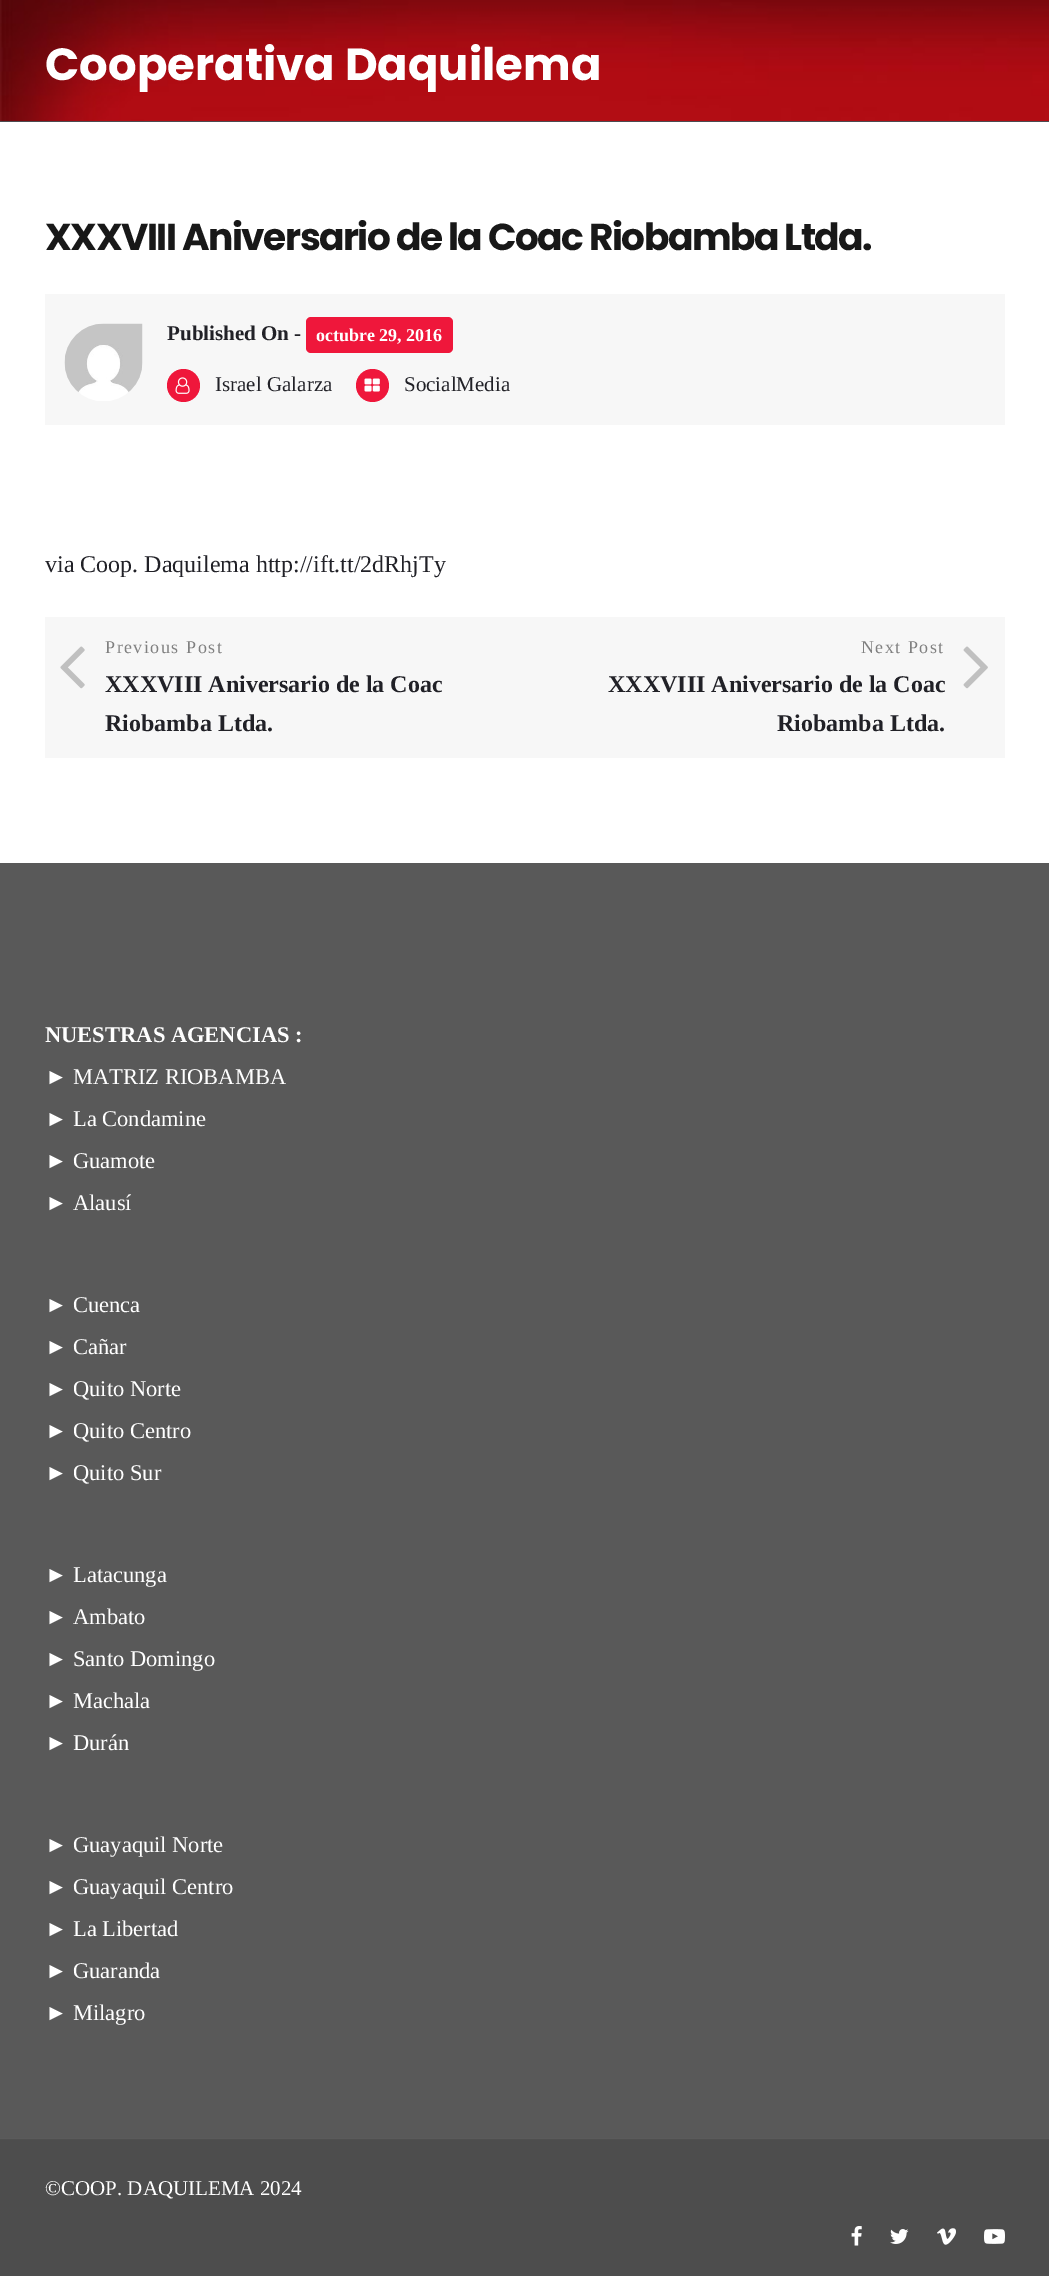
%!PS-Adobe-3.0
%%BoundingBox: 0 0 1049 2276
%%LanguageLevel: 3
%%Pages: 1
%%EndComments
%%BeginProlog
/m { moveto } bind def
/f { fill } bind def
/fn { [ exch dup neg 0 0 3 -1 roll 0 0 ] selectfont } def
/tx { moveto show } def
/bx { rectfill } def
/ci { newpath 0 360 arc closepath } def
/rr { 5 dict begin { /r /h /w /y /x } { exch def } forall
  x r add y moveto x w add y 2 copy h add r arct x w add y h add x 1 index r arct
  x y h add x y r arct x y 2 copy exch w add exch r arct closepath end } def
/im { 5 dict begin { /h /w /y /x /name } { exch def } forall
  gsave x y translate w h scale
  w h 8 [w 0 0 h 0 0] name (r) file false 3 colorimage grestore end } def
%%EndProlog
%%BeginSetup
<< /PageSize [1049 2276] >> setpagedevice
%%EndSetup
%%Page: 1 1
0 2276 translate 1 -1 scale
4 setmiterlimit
1 setgray
0 0 1049 2276 bx
0.298 0.294 0.314 setrgbcolor
0 121 1049 1 bx
(image0.raw) 0 0 1049 121 im
/Poppins-Bold 45 fn
1 setgray
(Cooperativa Daquilema) 45 80 tx
/Poppins-Bold 37.5 fn
0.094 setgray
45 250 m -1.5 0 (XXXVIII Aniversario de la Coac Riobamba Ltda.) ashow
0.969 setgray
45 294 960 131 bx
(image1.raw) 64 323 79 78 im
/LiberationSerif-Bold 21 fn
0.129 0.129 0.153 setrgbcolor
(Published On -) 167 340 tx
0.937 0.09 0.231 setrgbcolor
306 317 147 36 5 rr f
/LiberationSerif-Bold 18 fn
1 setgray
(octubre 29, 2016) 316 341 tx
0.937 0.09 0.231 setrgbcolor
183.5 385.5 16.5 ci f
(image2.raw) 175 377 15 17 im
/LiberationSerif-Regular 21 fn
0.129 0.129 0.153 setrgbcolor
(Israel Galarza) 215 391 tx
0.937 0.09 0.231 setrgbcolor
372.5 385.5 16.5 ci f
(image3.raw) 364 378 16 14 im
0.129 0.129 0.153 setrgbcolor
(SocialMedia) 404 391 tx
/LiberationSerif-Regular 24 fn
(via Coop. Daquilema http://ift.tt/2dRhjTy) 45 572 tx
0.969 setgray
45 617 960 141 bx
(image4.raw) 60 646 25 43 im
/LiberationSerif-Regular 18 fn
0.502 setgray
105 653 m 1.5 0 (Previous Post) ashow
/LiberationSerif-Bold 24 fn
0.129 0.129 0.153 setrgbcolor
(XXXVIII Aniversario de la Coac) 105 692 tx
(Riobamba Ltda.) 105 731 tx
/LiberationSerif-Regular 18 fn
0.502 setgray
861 653 m 1.5 0 (Next Post) ashow
(image5.raw) 963 646 25 43 im
/LiberationSerif-Bold 24 fn
0.129 0.129 0.153 setrgbcolor
(XXXVIII Aniversario de la Coac) 608 692 tx
(Riobamba Ltda.) 777 731 tx
0.302 setgray
0 2140 1049 136 bx
0.31 setgray
0 2139 1049 1 bx
0.349 setgray
0 863 1049 1275 bx
0.357 setgray
0 2138 1049 1 bx
/LiberationSerif-Bold 22.5 fn
1 setgray
(NUESTRAS AGENCIAS :) 45 1042 tx
/LiberationSerif-Regular 22.5 fn
(► MATRIZ RIOBAMBA) 45 1084 tx
(► La Condamine) 45 1126 tx
(► Guamote) 45 1168 tx
(► Alausí) 45 1210 tx
(► Cuenca) 45 1312 tx
(► Cañar) 45 1354 tx
(► Quito Norte) 45 1396 tx
(► Quito Centro) 45 1438 tx
(► Quito Sur) 45 1480 tx
(► Latacunga) 45 1582 tx
(► Ambato) 45 1624 tx
(► Santo Domingo) 45 1666 tx
(► Machala) 45 1708 tx
(► Durán) 45 1750 tx
(► Guayaquil Norte) 45 1852 tx
(► Guayaquil Centro) 45 1894 tx
(► La Libertad) 45 1936 tx
(► Guaranda) 45 1978 tx
(► Milagro) 45 2020 tx
/LiberationSerif-Regular 21 fn
(©COOP. DAQUILEMA 2024) 45 2195 tx
(image6.raw) 851 2226 11 20 im
(image7.raw) 890 2229 19 15 im
(image8.raw) 937 2228 19 17 im
(image9.raw) 984 2229 21 15 im
showpage
%%EOF
